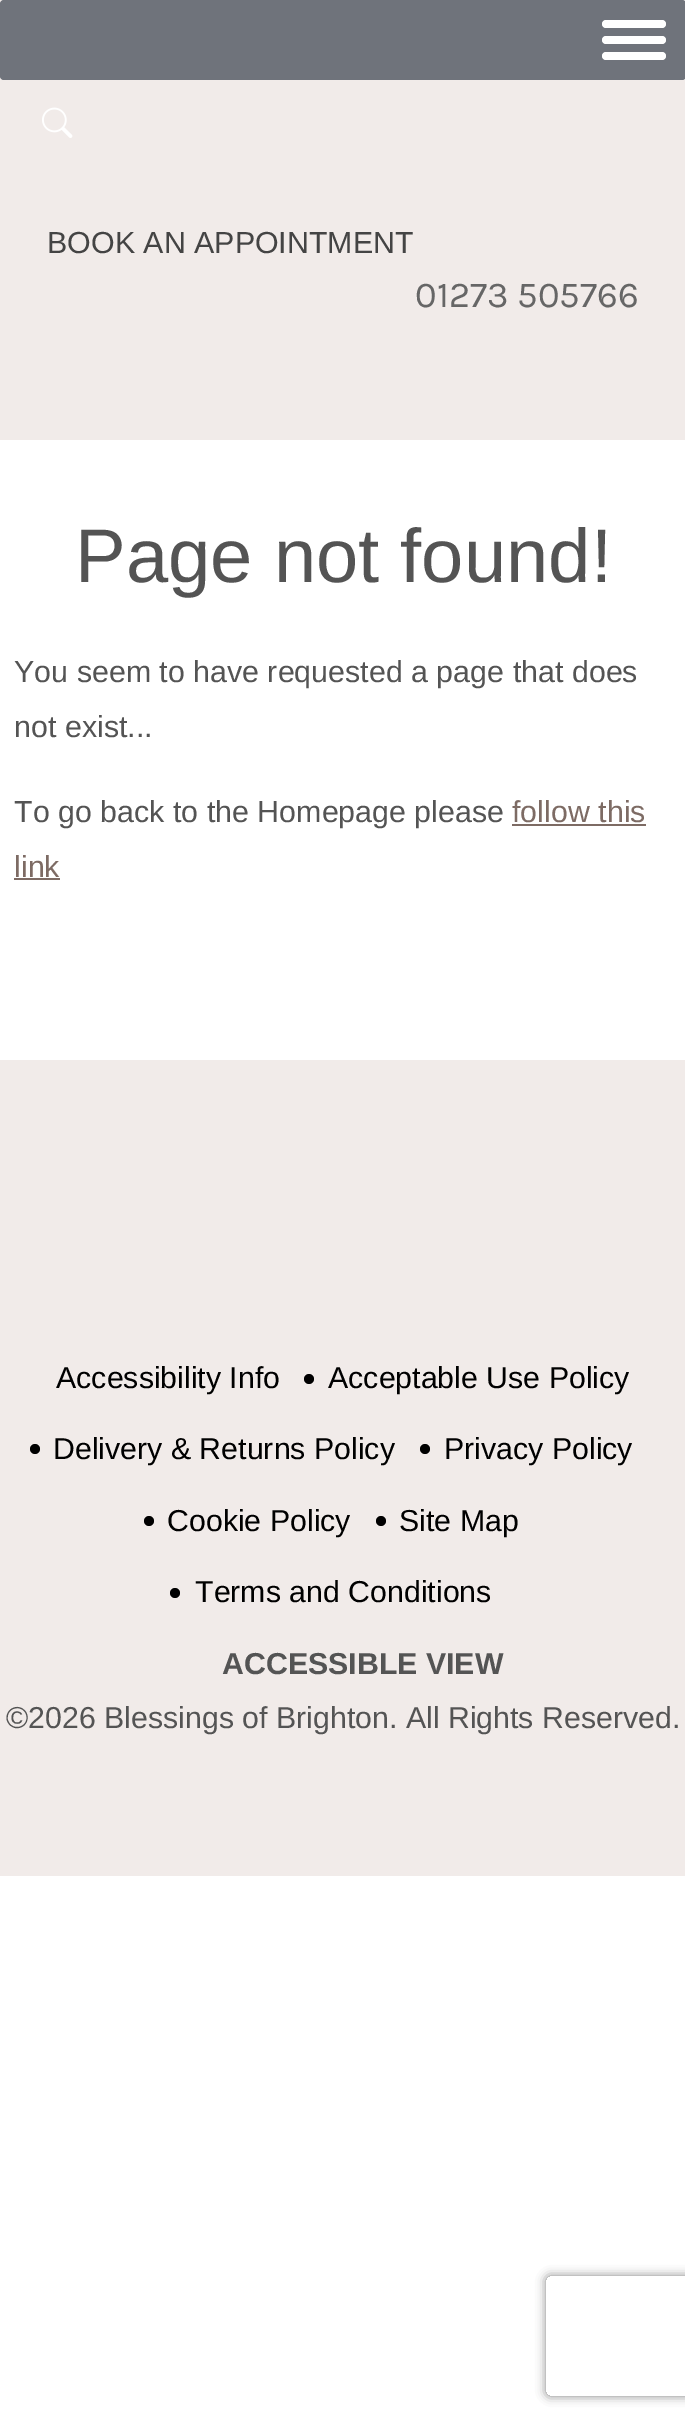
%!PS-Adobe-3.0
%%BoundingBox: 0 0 685 2423
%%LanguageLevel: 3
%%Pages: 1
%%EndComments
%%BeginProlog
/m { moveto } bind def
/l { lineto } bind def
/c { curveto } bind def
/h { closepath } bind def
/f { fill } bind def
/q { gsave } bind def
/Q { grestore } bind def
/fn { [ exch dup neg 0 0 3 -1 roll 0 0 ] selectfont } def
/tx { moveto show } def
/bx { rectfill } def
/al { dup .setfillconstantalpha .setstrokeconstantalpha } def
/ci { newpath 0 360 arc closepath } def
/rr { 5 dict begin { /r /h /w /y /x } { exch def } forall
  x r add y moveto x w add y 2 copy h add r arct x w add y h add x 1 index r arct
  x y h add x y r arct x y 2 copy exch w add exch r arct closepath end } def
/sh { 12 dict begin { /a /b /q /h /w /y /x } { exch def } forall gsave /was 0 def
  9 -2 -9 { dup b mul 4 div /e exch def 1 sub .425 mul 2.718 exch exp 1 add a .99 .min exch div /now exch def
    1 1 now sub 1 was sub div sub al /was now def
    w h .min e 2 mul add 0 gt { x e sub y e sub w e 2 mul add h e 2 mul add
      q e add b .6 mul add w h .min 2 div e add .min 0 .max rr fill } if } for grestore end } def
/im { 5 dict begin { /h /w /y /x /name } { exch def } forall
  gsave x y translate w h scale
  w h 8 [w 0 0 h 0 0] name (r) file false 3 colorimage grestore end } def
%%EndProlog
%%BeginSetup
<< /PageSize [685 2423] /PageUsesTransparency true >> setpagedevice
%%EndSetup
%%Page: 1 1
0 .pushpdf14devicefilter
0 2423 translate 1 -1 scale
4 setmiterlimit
1 setgray
0 0 685 2423 bx
0.945 0.922 0.914 setrgbcolor
0 0 685 440 bx
0.435 0.451 0.482 setrgbcolor
0 0 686 80 4 rr f
1 setgray
602 20 64 8 4 rr f
602 36 64 8 4 rr f
602 52 64 8 4 rr f
(image0.raw) 42 107 31 31 im
/LiberationSans-Regular 30.4 fn
0.267 setgray
(BOOK AN APPOINTMENT) 47 253 tx
/Karla-Regular 36.5 fn
0.4 setgray
(01273 505766) 415 307 tx
/LiberationSans-Regular 76 fn
0.329 setgray
(Page not found!) 75 582 tx
/LiberationSans-Regular 30.4 fn
(You seem to have requested a page that does) 14 682 tx
(not exist...) 14 737 tx
(To go back to the Homepage please) 14 822 tx
0.49 0.42 0.392 setrgbcolor
(follow this) 512 822 tx
512 824 134 2 bx
(link) 14 877 tx
14 878 46 2 bx
0.945 0.922 0.914 setrgbcolor
0 1060 685 816 bx
/LiberationSans-Regular 30.3 fn
0 setgray
(Accessibility Info) 56 1388 tx
309 1379 5 ci f
(Acceptable Use Policy) 328 1388 tx
35 1449 5 ci f
(Delivery & Returns Policy) 53 1459 tx
425 1449 5 ci f
(Privacy Policy) 444 1459 tx
149 1521 5 ci f
(Cookie Policy) 167 1531 tx
381 1521 5 ci f
(Site Map) 399 1531 tx
175 1593 5 ci f
(Terms and Conditions) 195 1602 tx
/LiberationSans-Bold 30.3 fn
0.329 setgray
(ACCESSIBLE VIEW) 222 1674 tx
/LiberationSans-Regular 30.3 fn
(©2026 Blessings of Brighton. All Rights Reserved.) 6 1728 tx
q
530 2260 m 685 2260 l 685 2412 l 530 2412 l h 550 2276 m 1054 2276 l 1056 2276 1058 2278 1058 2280 c 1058 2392 l 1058 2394 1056 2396 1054 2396 c 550 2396 l 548 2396 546 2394 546 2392 c 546 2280 l 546 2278 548 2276 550 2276 c h eoclip newpath
0.502 setgray
546 2276 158 120 4 5 1 sh
Q
.poppdf14devicefilter showpage
%%EOF
